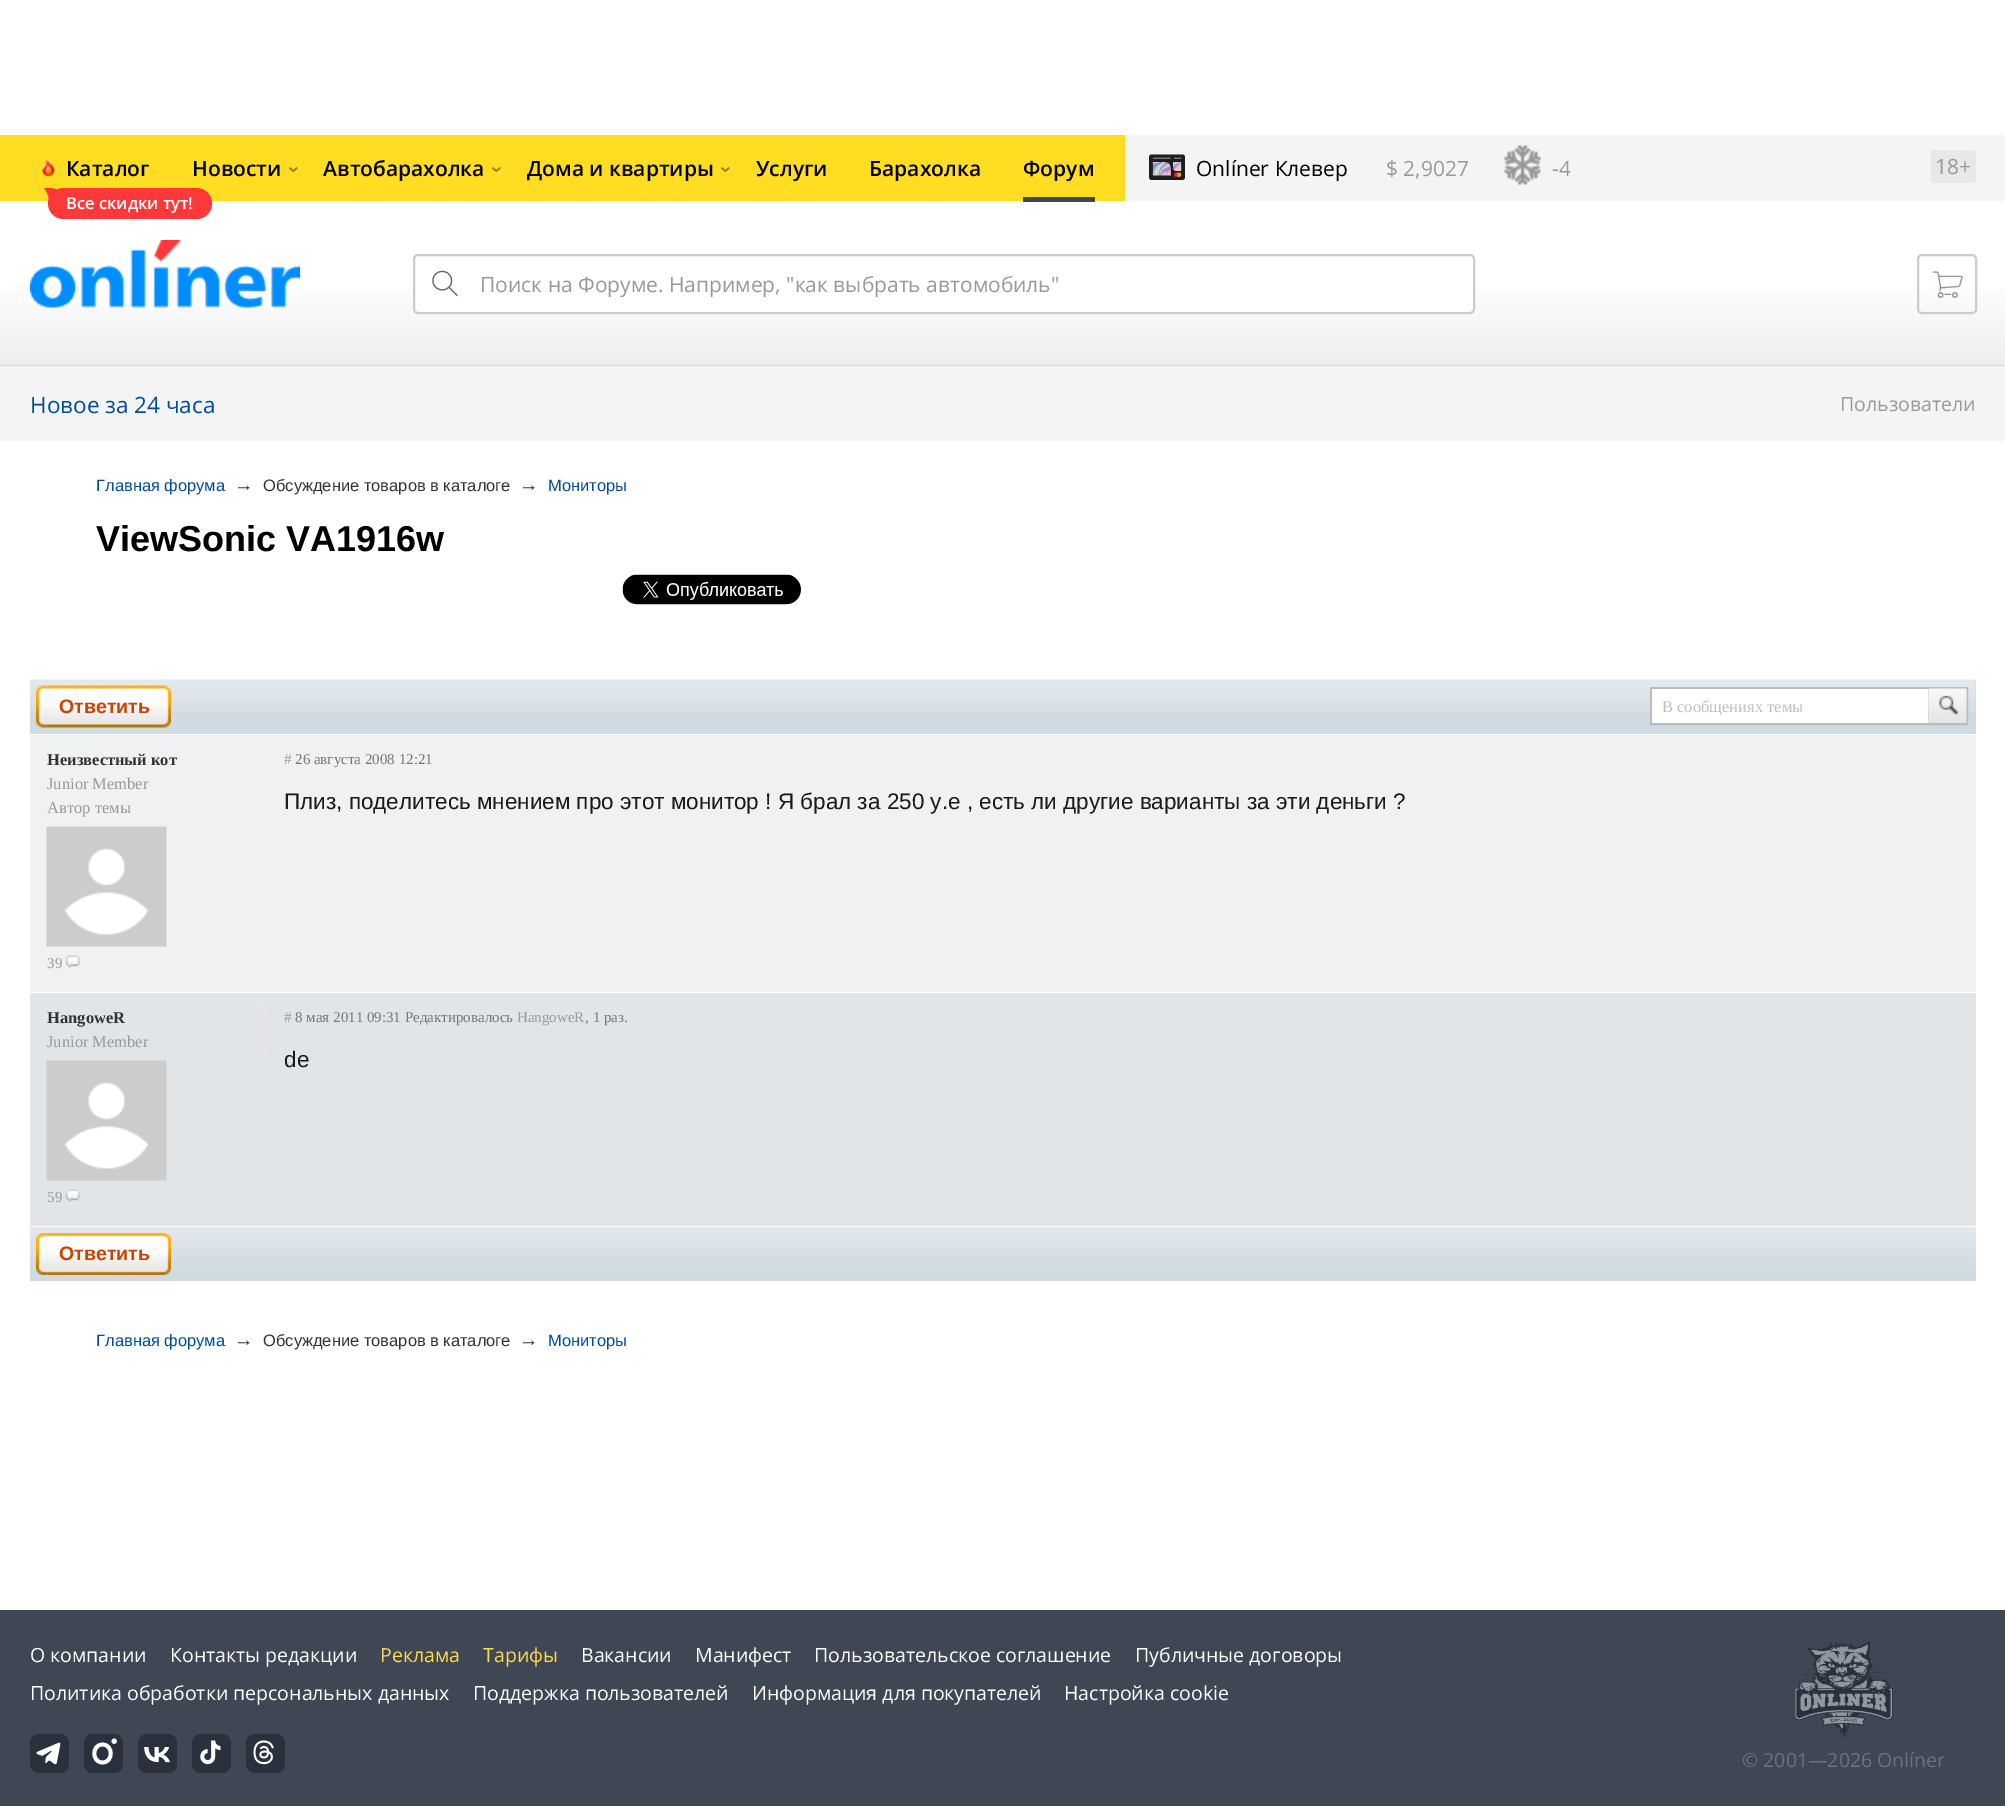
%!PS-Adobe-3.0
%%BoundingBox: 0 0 2005 1806
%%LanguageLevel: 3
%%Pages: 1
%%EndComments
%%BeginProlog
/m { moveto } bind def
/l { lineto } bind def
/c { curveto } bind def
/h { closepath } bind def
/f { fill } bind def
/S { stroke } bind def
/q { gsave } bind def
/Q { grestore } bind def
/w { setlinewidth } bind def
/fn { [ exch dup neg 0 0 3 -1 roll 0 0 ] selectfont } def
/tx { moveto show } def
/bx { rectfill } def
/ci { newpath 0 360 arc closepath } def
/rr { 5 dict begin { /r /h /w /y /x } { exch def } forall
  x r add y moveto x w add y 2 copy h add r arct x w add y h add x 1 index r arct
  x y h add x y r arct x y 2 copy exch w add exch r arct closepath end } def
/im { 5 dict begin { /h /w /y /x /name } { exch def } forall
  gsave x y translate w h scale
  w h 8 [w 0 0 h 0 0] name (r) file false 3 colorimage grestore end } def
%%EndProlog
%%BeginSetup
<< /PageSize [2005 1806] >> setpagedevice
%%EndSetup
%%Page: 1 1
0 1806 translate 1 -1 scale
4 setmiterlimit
1 setgray
0 0 2005 1806 bx
q 0 290 m 2005 290 l 2005 365 l 0 365 l h clip newpath
<< /ShadingType 2 /ColorSpace /DeviceRGB /Coords [1003 135 1003 420] /Extend [true true] /Function << /FunctionType 3 /Domain [0 1] /Functions [<< /FunctionType 2 /Domain [0 1] /C0 [1 1 1] /C1 [1 1 1] /N 1 >> << /FunctionType 2 /Domain [0 1] /C0 [1 1 1] /C1 [0.89 0.89 0.89] /N 1 >>] /Bounds [0.5] /Encode [0 1 0 1] >> >> shfill Q
0.957 setgray
1125 135 880 66 bx
1 0.867 0.133 setrgbcolor
0 135 1125 66 bx
/OpenSans-SemiBold 21 fn
0 setgray
(Каталог) 66 176 tx
(image0.raw) 42 160 13 17 im
1 0.224 0.224 setrgbcolor
48 188 164 31 15.5 rr f
(image1.raw) 44 188 19 12 im
/OpenSans-SemiBold 16.5 fn
1 setgray
(Все скидки тут!) 66 209 tx
/OpenSans-SemiBold 21 fn
0 setgray
(Новости) 192 176 tx
0.6 0.522 0.078 setrgbcolor
q 299 173 translate -90 rotate 0 0 m (‹) show Q
0 setgray
(Автобарахолка) 323 176 tx
0.6 0.522 0.078 setrgbcolor
q 502 173 translate -90 rotate 0 0 m (‹) show Q
0 setgray
(Дома и квартиры) 527 176 tx
0.6 0.522 0.078 setrgbcolor
q 731 173 translate -90 rotate 0 0 m (‹) show Q
0 setgray
(Услуги) 756 176 tx
(Барахолка) 869 176 tx
(Форум) 1023 176 tx
0.243 0.278 0.325 setrgbcolor
1023 197 72 5 bx
(image2.raw) 1149 154 36 26 im
/OpenSans-Regular 21 fn
0 setgray
(Onlíner Клевер) 1196 176 tx
0.6 setgray
($ 2,9027) 1386 176 tx
(image3.raw) 1504 145 38 40 im
(-4) 1552 176 tx
0.91 setgray
1931 150 45 33 3 rr f
0.6 setgray
(18+) 1935 174 tx
(image4.raw) 30 240 270 68 im
1 setgray
413 254 1062 60 5 rr f
(image5.raw) 432 270 26 27 im
0.8 setgray
2 w
414 255 1060 58 4 rr S
0.6 setgray
(Поиск на Форуме. Например, "как выбрать автомобиль") 480 292 tx
0.8 setgray
1918 255 58 58 4 rr S
(image6.raw) 1932 271 31 27 im
0.847 setgray
0 365 2005 1 bx
0.957 setgray
0 366 2005 75 bx
/OpenSans-Regular 22.5 fn
0 0.302 0.6 setrgbcolor
(Новое за 24 часа) 30 413 tx
/OpenSans-Regular 19.5 fn
0.6 setgray
(Пользователи) 1840 411 tx
/LiberationSans-Regular 16.5 fn
0 0.302 0.6 setrgbcolor
(Главная форума) 96 491 tx
/LiberationSans-Regular 19.5 fn
0.2 setgray
(→) 234 491 tx
/LiberationSans-Regular 16.5 fn
(Обсуждение товаров в каталоге) 263 491 tx
/LiberationSans-Regular 19.5 fn
(→) 519 491 tx
/LiberationSans-Regular 16.5 fn
0 0.302 0.6 setrgbcolor
(Мониторы) 548 491 tx
/LiberationSans-Bold 36 fn
0 setgray
(ViewSonic VA1916w) 96 551 tx
(image7.raw) 622 574 179 31 im
0.816 0.855 0.886 setrgbcolor
30 680 1946 54 bx
(image8.raw) 30 679 1946 33 im
(image9.raw) 36 685 11 43 im
(image10.raw) 46 685 125 43 im
/LiberationSans-Bold 19.5 fn
0.796 0.263 0 setrgbcolor
(Ответить) 59 713 tx
0.733 setgray
1651 688 316 36 rectstroke
1 setgray
1652 689 276 34 bx
/LiberationSerif-Regular 16.5 fn
0.749 setgray
(В сообщениях темы) 1662 712 tx
(image11.raw) 1929 688 38 35 im
0.941 0.945 0.949 setrgbcolor
30 735 1946 257 bx
/LiberationSerif-Bold 16.5 fn
0.2 setgray
(Неизвестный кот) 47 765 tx
/LiberationSerif-Regular 16.5 fn
0.6 setgray
(Junior Member) 47 789 tx
(Автор темы) 47 813 tx
(image12.raw) 46 826 121 121 im
/LiberationSerif-Regular 15 fn
(39) 47 968 tx
(image13.raw) 66 955 14 13 im
(#) 284 764 tx
0.467 setgray
(26 августа 2008 12:21) 295 764 tx
/LiberationSans-Regular 22.5 fn
0.102 setgray
(Плиз, поделитесь мнением про этот монитор ! Я брал за 250 у.е , есть ли другие варианты за эти деньги ?) 284 809 tx
0.882 0.898 0.91 setrgbcolor
30 993 1946 233 bx
/LiberationSerif-Bold 16.5 fn
0.2 setgray
(HangoweR) 47 1023 tx
(image14.raw) 260 1005 8 55 im
/LiberationSerif-Regular 16.5 fn
0.6 setgray
(Junior Member) 47 1047 tx
(image15.raw) 46 1060 121 121 im
/LiberationSerif-Regular 15 fn
(59) 47 1202 tx
(image16.raw) 66 1189 14 13 im
(#) 284 1022 tx
0.467 setgray
(8 мая 2011 09:31 Редактировалось) 295 1022 tx
0.6 setgray
(HangoweR) 517 1022 tx
0.467 setgray
(, 1 раз.) 585 1022 tx
/LiberationSans-Regular 22.5 fn
0.102 setgray
(de) 284 1067 tx
0.855 0.878 0.898 setrgbcolor
1975 1227 1 54 bx
(image17.raw) 30 1227 1946 54 im
(image18.raw) 36 1233 11 42 im
(image19.raw) 46 1233 125 42 im
/LiberationSans-Bold 19.5 fn
0.796 0.263 0 setrgbcolor
(Ответить) 59 1260 tx
/LiberationSans-Regular 16.5 fn
0 0.302 0.6 setrgbcolor
(Главная форума) 96 1346 tx
/LiberationSans-Regular 19.5 fn
0.2 setgray
(→) 234 1346 tx
/LiberationSans-Regular 16.5 fn
(Обсуждение товаров в каталоге) 263 1346 tx
/LiberationSans-Regular 19.5 fn
(→) 519 1346 tx
/LiberationSans-Regular 16.5 fn
0 0.302 0.6 setrgbcolor
(Мониторы) 548 1346 tx
0.243 0.278 0.325 setrgbcolor
0 1610 2005 196 bx
/OpenSans-Regular 19.5 fn
1 setgray
(О компании) 30 1662 tx
(Контакты редакции) 170 1662 tx
1 0.855 0.314 setrgbcolor
(Реклама) 380 1662 tx
(Тарифы) 483 1662 tx
1 setgray
(Вакансии) 581 1662 tx
(Манифест) 695 1662 tx
(Пользовательское соглашение) 814 1662 tx
(Публичные договоры) 1135 1662 tx
(Политика обработки персональных данных) 30 1700 tx
(Поддержка пользователей) 473 1700 tx
(Информация для покупателей) 752 1700 tx
(Настройка cookie) 1064 1700 tx
0.157 0.192 0.235 setrgbcolor
30 1734 39 39 9 rr f
(image20.raw) 36 1742 25 23 im
84 1734 39 39 9 rr f
1 setgray
3.8 w
102.5 1744.5 m 113.5 1744.5 113.5 1762.5 102.5 1762.5 c 91.5 1762.5 91.5 1744.5 102.5 1744.5 c h S
114.2 1741.2 2.6 ci f
0.157 0.192 0.235 setrgbcolor
138 1734 39 39 9 rr f
(image21.raw) 144 1747 26 16 im
192 1734 39 39 9 rr f
(image22.raw) 200 1740 21 25 im
246 1734 39 39 9 rr f
(image23.raw) 253 1740 21 25 im
(image24.raw) 1795 1641 98 96 im
0.42 0.451 0.498 setrgbcolor
(© 2001—2026 Onlíner) 1742 1767 tx
showpage
%%EOF
